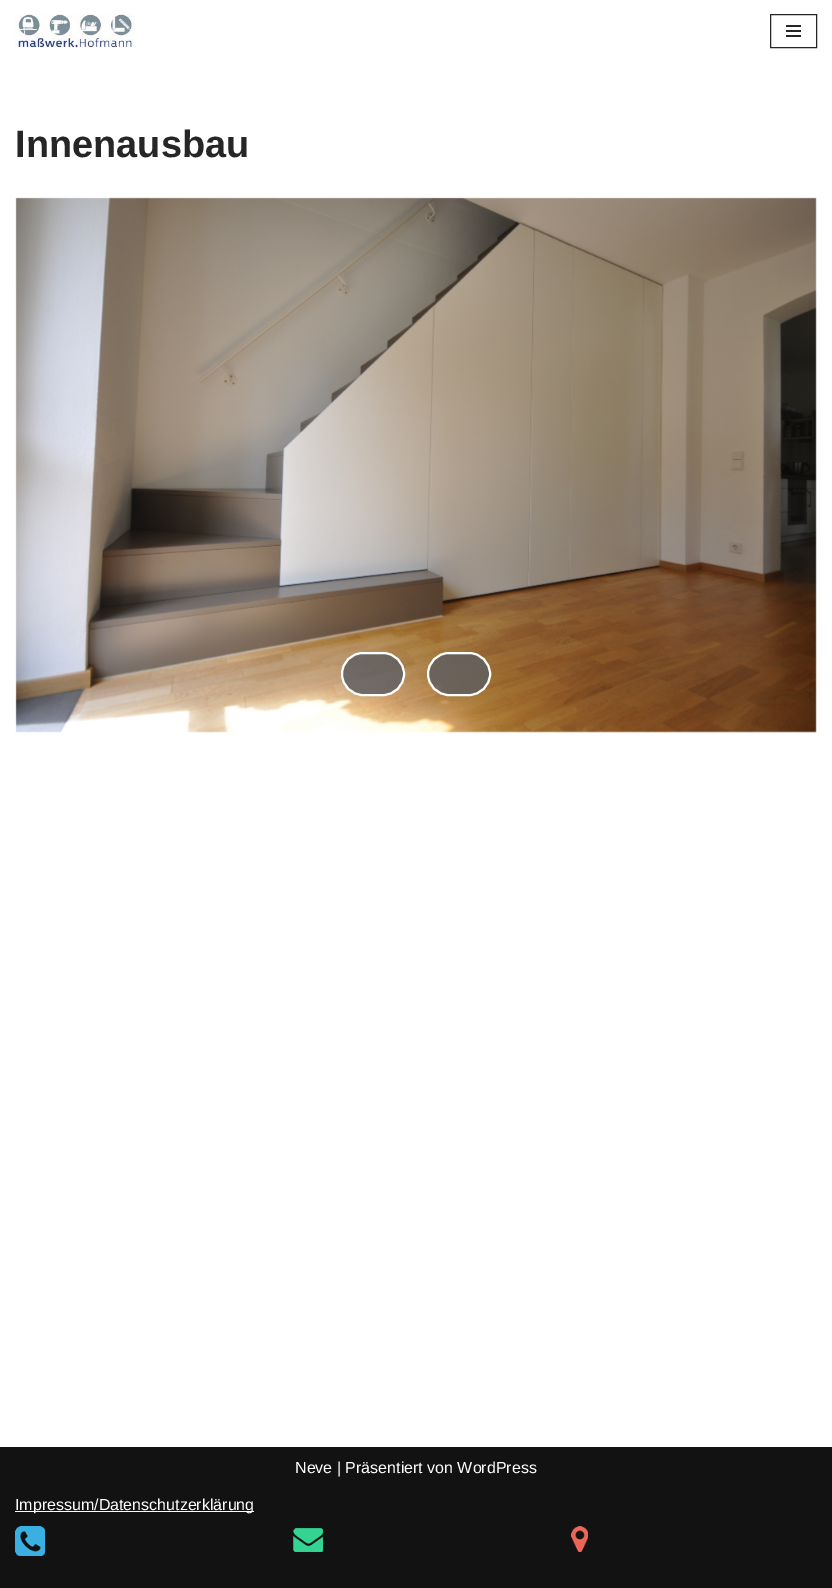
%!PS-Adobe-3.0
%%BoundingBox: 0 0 832 1588
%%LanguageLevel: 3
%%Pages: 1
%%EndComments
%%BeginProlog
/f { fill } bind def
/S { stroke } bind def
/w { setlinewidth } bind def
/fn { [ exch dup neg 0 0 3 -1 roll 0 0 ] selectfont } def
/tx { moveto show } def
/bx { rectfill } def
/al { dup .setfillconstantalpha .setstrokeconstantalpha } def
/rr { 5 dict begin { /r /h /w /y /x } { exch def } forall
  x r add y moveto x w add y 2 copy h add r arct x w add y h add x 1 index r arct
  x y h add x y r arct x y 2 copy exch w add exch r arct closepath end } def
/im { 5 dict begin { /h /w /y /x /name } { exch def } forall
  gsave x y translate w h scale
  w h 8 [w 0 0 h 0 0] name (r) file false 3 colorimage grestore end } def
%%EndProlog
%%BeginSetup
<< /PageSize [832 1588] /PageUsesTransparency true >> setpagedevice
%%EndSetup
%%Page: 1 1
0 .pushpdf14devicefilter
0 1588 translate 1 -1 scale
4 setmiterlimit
1 setgray
0 0 832 1588 bx
(image0.raw) 15 14 120 34 im
0.153 0.149 0.149 setrgbcolor
770.5 14.5 46 33 rectstroke
786 25 15 2 bx
786 30 15 2 bx
786 35 15 2 bx
/LiberationSans-Bold 38 fn
(Innenausbau) 15 157 tx
(image1.raw) 15 197 802 536 im
0.8 al
0.357 0.361 0.38 setrgbcolor
342 653 62 42 21 rr f
1 al
1 setgray
2 w
342 653 62 42 21 rr S
0.8 al
0.357 0.361 0.38 setrgbcolor
428 653 62 42 21 rr f
1 al
1 setgray
428 653 62 42 21 rr S
0.071 setgray
0 1447 832 141 bx
/LiberationSans-Regular 16 fn
1 setgray
(Neve | Präsentiert von WordPress) 295 1473 tx
15 1511 239 1 bx
(Impressum/Datenschutzerklärung) 15 1510 tx
(image2.raw) 15 1526 30 30 im
(image3.raw) 293 1528 30 24 im
(image4.raw) 571 1526 17 26 im
.poppdf14devicefilter showpage
%%EOF
